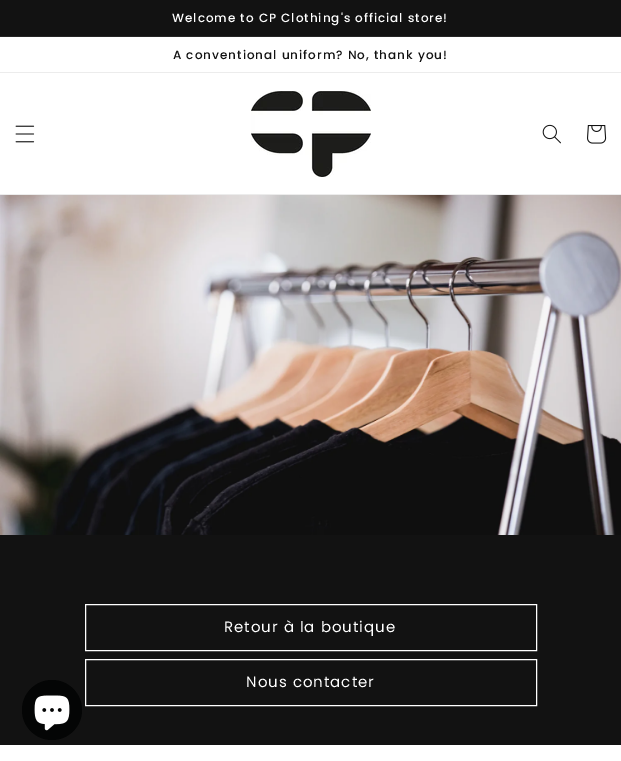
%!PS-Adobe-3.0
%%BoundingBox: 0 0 621 761
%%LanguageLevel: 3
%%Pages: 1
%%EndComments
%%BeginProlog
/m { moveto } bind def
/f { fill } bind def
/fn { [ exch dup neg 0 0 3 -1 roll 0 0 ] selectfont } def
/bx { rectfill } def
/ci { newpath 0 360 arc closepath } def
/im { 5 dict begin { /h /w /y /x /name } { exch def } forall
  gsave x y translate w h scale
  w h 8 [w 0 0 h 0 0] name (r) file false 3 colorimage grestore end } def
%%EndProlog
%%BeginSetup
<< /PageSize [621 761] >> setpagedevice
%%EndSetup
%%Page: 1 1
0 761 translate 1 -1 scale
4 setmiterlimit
1 setgray
0 0 621 761 bx
0.071 setgray
0 0 621 36 bx
0.145 setgray
0 36 621 1 bx
/Poppins-Medium 12 fn
1 setgray
172 22 m 1 0 (Welcome to CP Clothing's official store!) ashow
0.925 setgray
0 72 621 1 bx
0.071 setgray
173 59 m 1 0 (A conventional uniform? No, thank you!) ashow
0.925 setgray
0 194 621 1 bx
(image0.raw) 15 125 20 18 im
(image1.raw) 251 91 120 86 im
(image2.raw) 542 124 19 20 im
(image3.raw) 587 125 20 19 im
(image4.raw) 0 195 621 340 im
0.071 setgray
0 535 621 210 bx
1 setgray
85.5 604.5 451 46 rectstroke
/Poppins-Regular 15 fn
224 632 m 1 0 (Retour à la boutique) ashow
85.5 659.5 451 46 rectstroke
246 687 m 1 0 (Nous contacter) ashow
0.016 0.02 0.02 setrgbcolor
52 710 30 ci f
(image5.raw) 34 695 36 36 im
showpage
%%EOF
